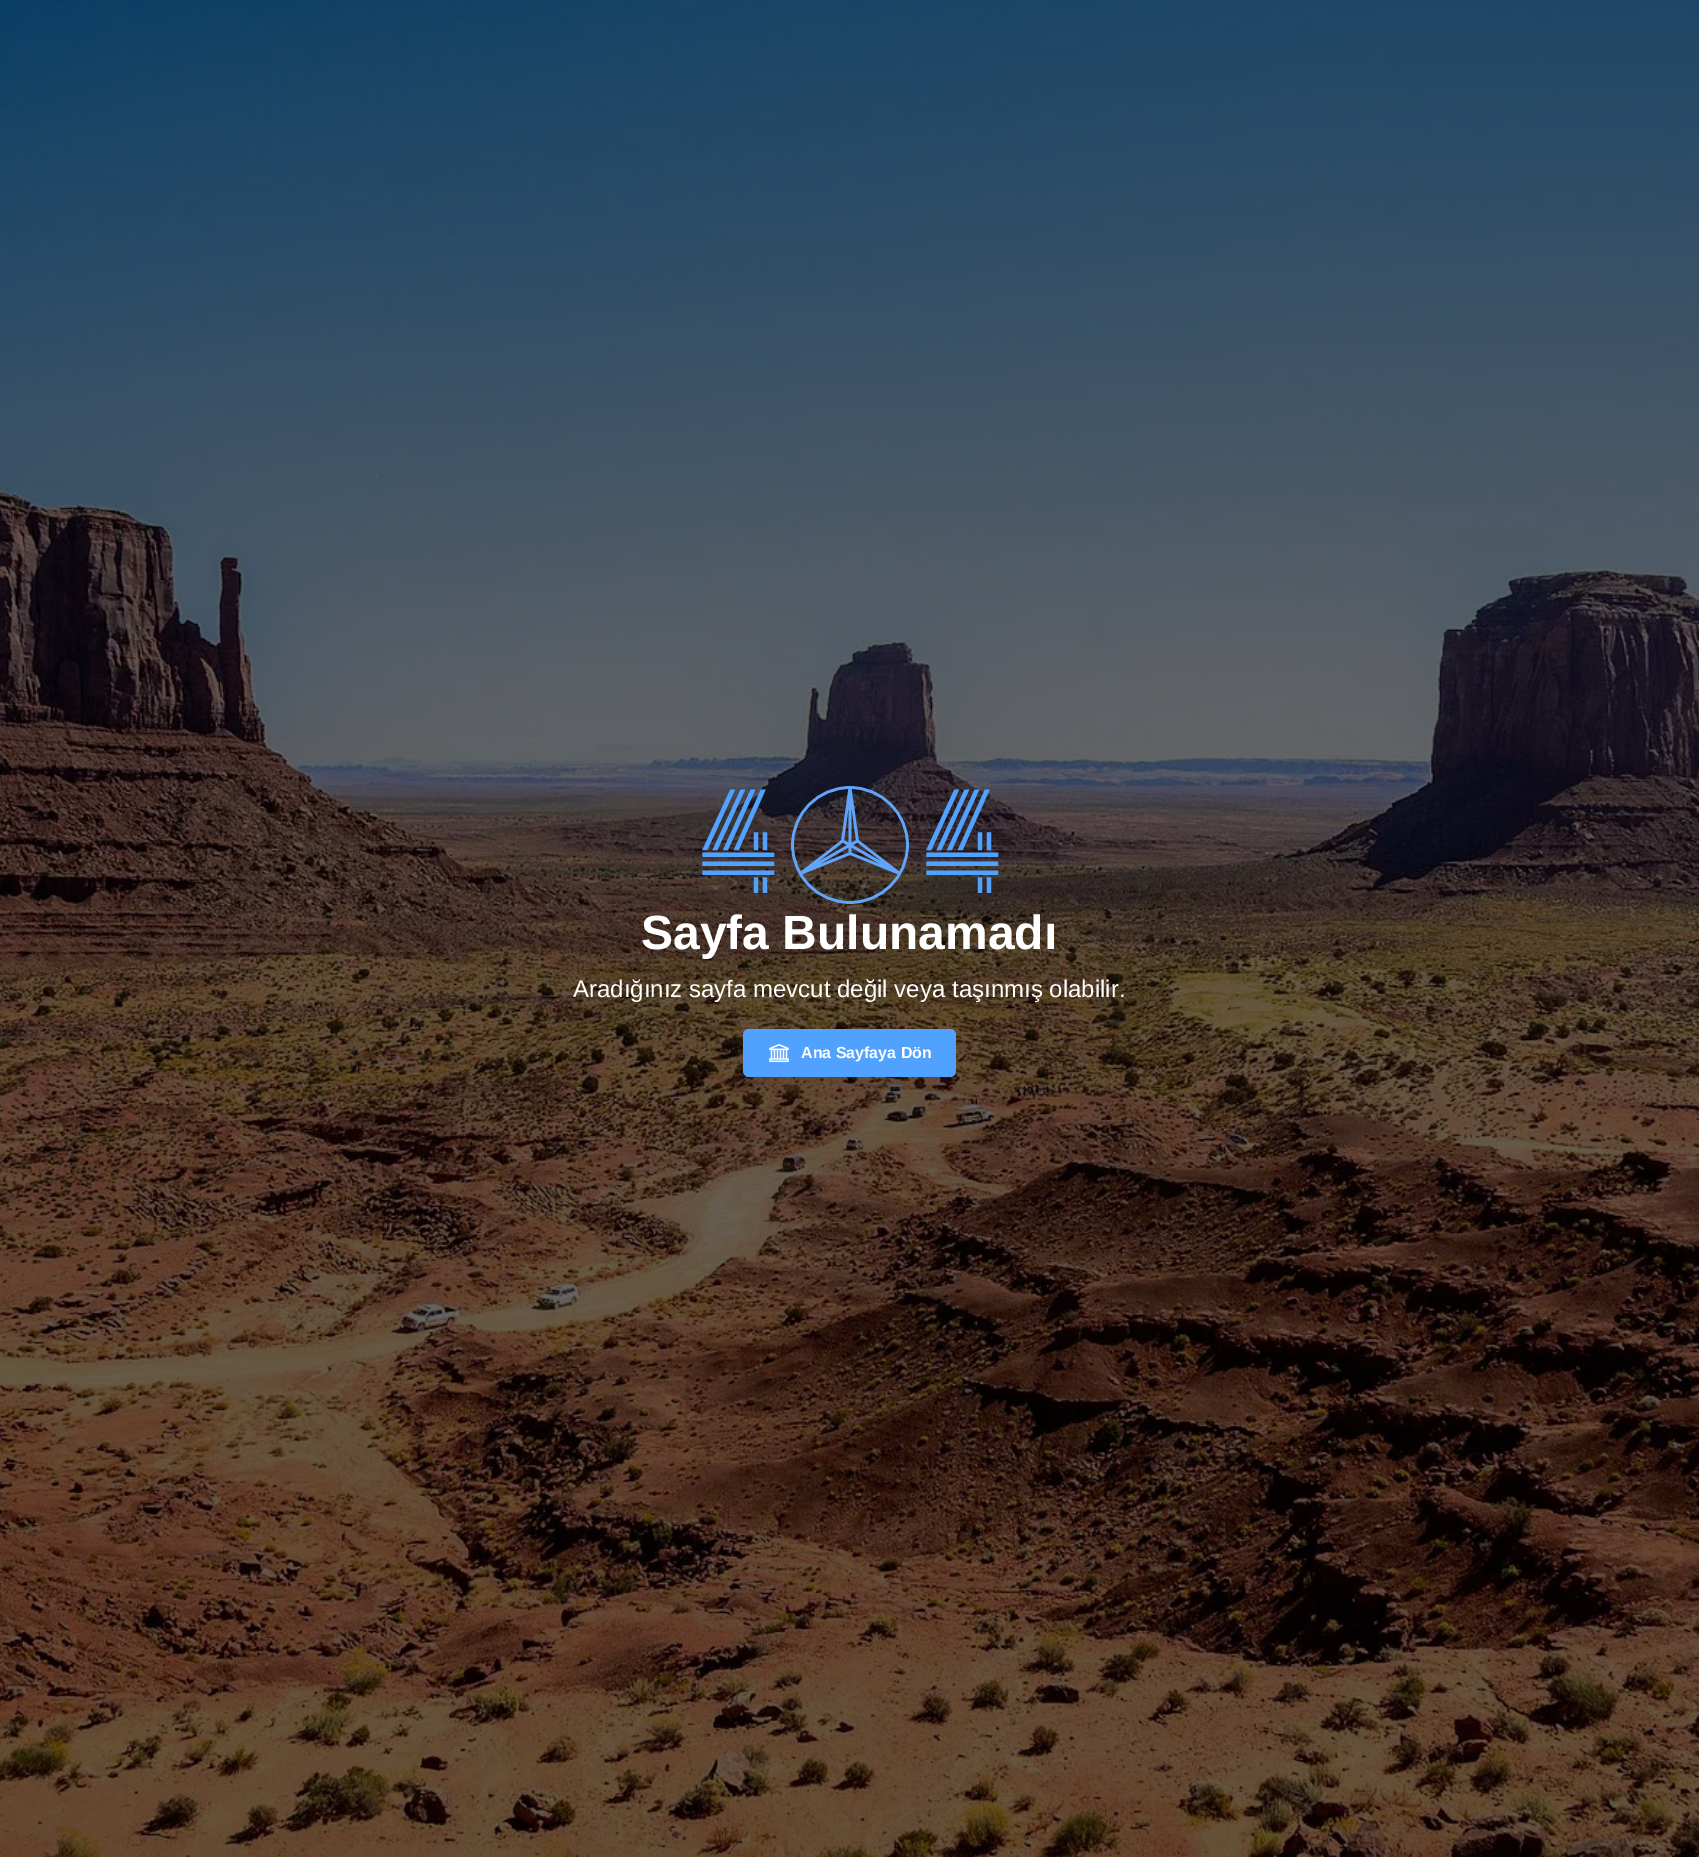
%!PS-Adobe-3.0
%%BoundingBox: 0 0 1699 1857
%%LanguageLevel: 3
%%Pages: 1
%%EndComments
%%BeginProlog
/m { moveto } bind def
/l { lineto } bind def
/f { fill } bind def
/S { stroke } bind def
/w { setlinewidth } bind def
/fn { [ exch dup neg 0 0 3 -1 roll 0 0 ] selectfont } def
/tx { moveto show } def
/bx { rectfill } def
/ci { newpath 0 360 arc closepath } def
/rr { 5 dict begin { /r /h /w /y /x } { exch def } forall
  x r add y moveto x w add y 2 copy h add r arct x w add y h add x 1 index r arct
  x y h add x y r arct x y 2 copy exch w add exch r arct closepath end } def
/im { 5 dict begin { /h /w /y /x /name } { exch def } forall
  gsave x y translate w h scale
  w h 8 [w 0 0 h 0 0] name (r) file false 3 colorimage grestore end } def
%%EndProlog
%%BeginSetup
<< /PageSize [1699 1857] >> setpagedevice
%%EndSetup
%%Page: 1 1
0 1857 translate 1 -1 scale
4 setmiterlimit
1 setgray
0 0 1699 1857 bx
(image0.raw) 0 0 1699 1857 im
/Monoton-Regular 128 fn
0.318 0.635 1 setrgbcolor
(4) 698 893 tx
0.376 0.647 0.98 setrgbcolor
2.7 w
850 845 57.5 ci S
1 setlinecap
1 setlinejoin
850 845 m 850 787.5 l 850 845 m 800.5 873.5 l 850 845 m 899.5 873.5 l 850 845 m 850 853.5 l 850 845 m 857.5 841 l 850 845 m 842.5 841 l 842.5 841 m 850 787.5 l 857.5 841 m 850 787.5 l 899.5 873.5 m 857.5 841 l 850 853.5 m 899.5 873.5 l 800.5 873.5 m 850 853.5 l 842.5 841 m 800.5 873.5 l S
0.318 0.635 1 setrgbcolor
(4) 922 893 tx
/LiberationSans-Bold 48 fn
1 setgray
(Sayfa Bulunamadı) 641 949 tx
/LiberationSans-Regular 24 fn
(Aradığınız sayfa mevcut değil veya taşınmış olabilir.) 573 997 tx
0.318 0.635 1 setrgbcolor
743 1029 213 48 6 rr f
(image1.raw) 769 1044 20 18 im
/LiberationSans-Bold 16 fn
1 setgray
(Ana Sayfaya Dön) 801 1058 tx
showpage
%%EOF
